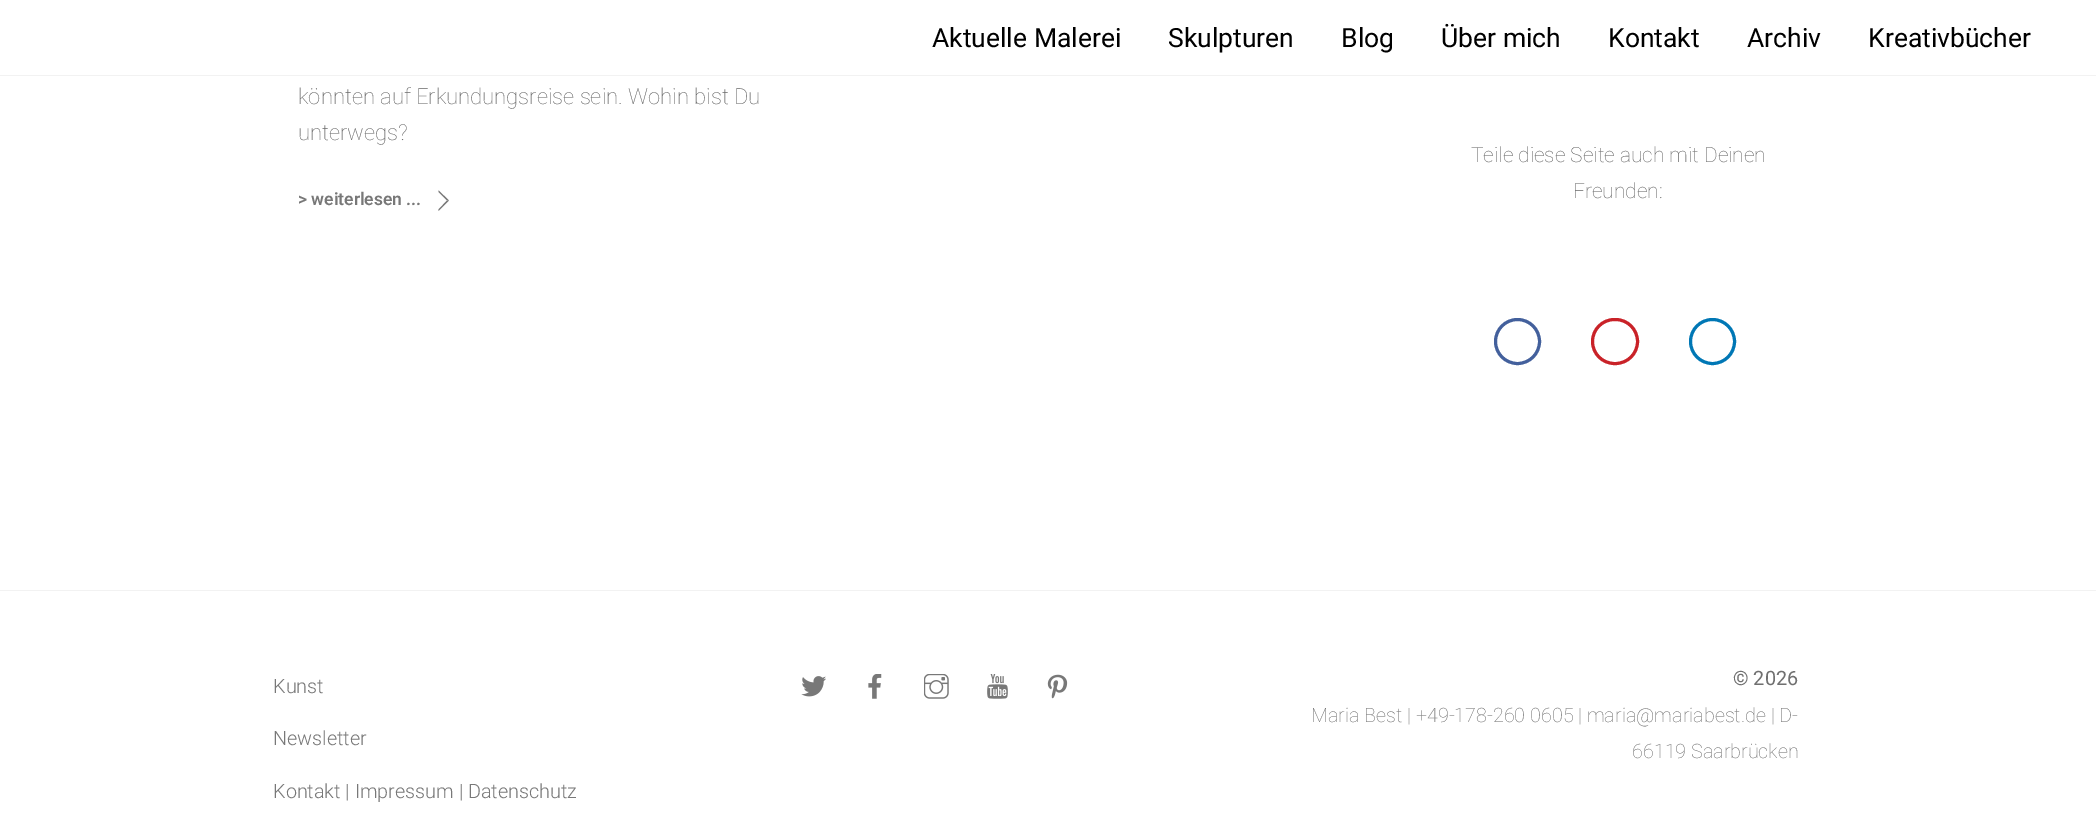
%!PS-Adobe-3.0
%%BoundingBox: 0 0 2096 819
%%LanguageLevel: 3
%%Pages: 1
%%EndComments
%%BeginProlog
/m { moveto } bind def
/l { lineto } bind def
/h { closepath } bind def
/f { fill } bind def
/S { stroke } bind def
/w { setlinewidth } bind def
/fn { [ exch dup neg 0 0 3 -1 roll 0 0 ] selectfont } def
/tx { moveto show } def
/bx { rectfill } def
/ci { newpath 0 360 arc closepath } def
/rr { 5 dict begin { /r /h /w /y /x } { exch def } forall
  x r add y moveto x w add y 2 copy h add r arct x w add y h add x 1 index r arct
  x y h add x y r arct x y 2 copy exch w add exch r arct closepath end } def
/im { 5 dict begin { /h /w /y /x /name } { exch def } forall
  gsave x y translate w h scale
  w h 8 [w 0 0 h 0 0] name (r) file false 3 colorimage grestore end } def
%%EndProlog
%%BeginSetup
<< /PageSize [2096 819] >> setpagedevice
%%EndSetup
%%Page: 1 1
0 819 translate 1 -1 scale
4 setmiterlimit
1 setgray
0 0 2096 819 bx
0.949 setgray
0 75 2096 1 bx
/Roboto-Regular 26.5 fn
0 setgray
(Aktuelle Malerei) 932 47 tx
(Skulpturen) 1168 47 tx
(Blog) 1341 47 tx
(Über mich) 1441 47 tx
(Kontakt) 1608 47 tx
(Archiv) 1747 47 tx
(Kreativbücher) 1868 47 tx
/Roboto-Thin 22 fn
0.4 setgray
(könnten auf Erkundungsreise sein. Wohin bist Du) 298 104 tx
(unterwegs?) 298 140 tx
/Roboto-SemiBold 17.5 fn
0.471 setgray
(> weiterlesen ...) 298 205 tx
438.5 190.5 m 449 200.5 l 447 200.5 l 438.5 192 l h f
449 200.5 m 438.5 211 l 438.5 209.5 l 447 200.5 l h f
/Roboto-Thin 20.9 fn
0.4 setgray
(Teile diese Seite auch mit Deinen) 1471 162 tx
(Freunden:) 1573 198 tx
0.263 0.376 0.612 setrgbcolor
3 w
1517.5 341.5 22 ci S
0.788 0.133 0.157 setrgbcolor
1592.5 319.5 45 44 22 rr S
0 0.467 0.71 setrgbcolor
1712.5 341.5 22 ci S
0.949 setgray
0 590 2096 1 bx
/Roboto-Light 19.8 fn
0.471 setgray
(Kunst) 273 693 tx
(Newsletter) 273 745 tx
(Kontakt | Impressum | Datenschutz) 273 798 tx
(image0.raw) 801 676 25 21 im
(image1.raw) 868 674 14 25 im
(image2.raw) 924 674 25 25 im
(image3.raw) 987 674 21 25 im
(image4.raw) 1047 674 21 25 im
/Roboto-Regular 19.8 fn
0.439 setgray
(© 2026) 1733 685 tx
/Roboto-Thin 19.8 fn
(Maria Best | +49-178-260 0605 | maria@mariabest.de | D-) 1311 722 tx
(66119 Saarbrücken) 1632 758 tx
showpage
%%EOF
